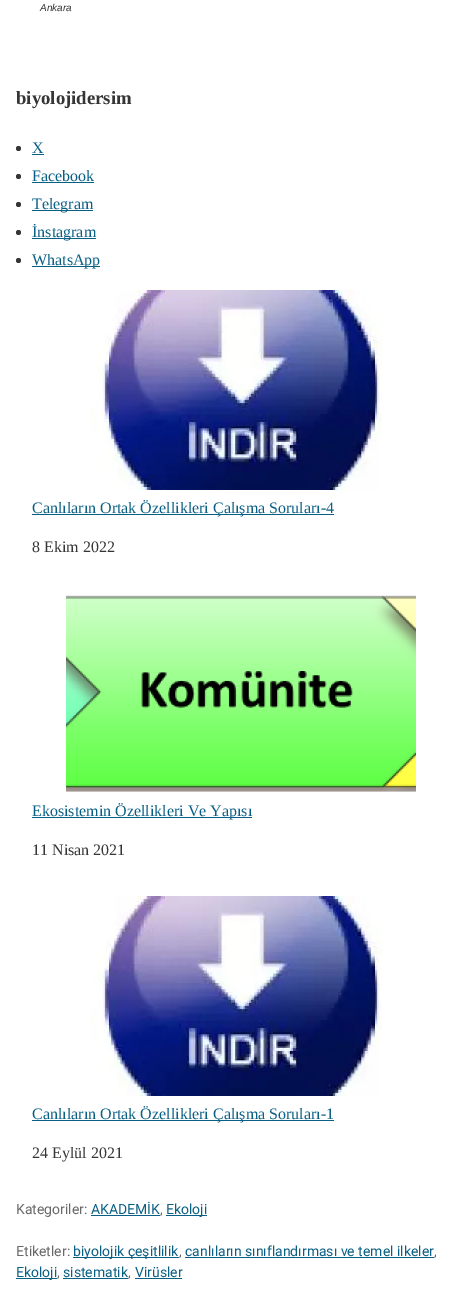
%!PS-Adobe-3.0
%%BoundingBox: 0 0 466 1295
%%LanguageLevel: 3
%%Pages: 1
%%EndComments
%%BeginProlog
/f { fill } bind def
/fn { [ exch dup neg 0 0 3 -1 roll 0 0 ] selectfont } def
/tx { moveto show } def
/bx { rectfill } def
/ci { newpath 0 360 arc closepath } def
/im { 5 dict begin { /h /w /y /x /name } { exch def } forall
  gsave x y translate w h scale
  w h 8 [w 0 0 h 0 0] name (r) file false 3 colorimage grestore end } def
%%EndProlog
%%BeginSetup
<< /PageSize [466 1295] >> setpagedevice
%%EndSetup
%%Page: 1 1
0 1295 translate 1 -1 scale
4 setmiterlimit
1 setgray
0 0 466 1295 bx
/LiberationSans-Italic 10 fn
0.208 setgray
(Ankara) 40 11 tx
/LiberationSerif-Bold 18.75 fn
(biyolojidersim) 16 104 tx
18.5 148.5 2.5 ci f
/LiberationSerif-Regular 16 fn
0.039 0.373 0.522 setrgbcolor
(X) 32 153 tx
32 154 12 1 bx
0.208 setgray
18.5 176.5 2.5 ci f
0.039 0.373 0.522 setrgbcolor
(Facebook) 32 181 tx
32 182 62 1 bx
0.208 setgray
18.5 204.5 2.5 ci f
0.039 0.373 0.522 setrgbcolor
32 210 61 1 bx
(Telegram) 32 209 tx
0.208 setgray
18.5 232.5 2.5 ci f
0.039 0.373 0.522 setrgbcolor
32 238 64 1 bx
(İnstagram) 32 237 tx
0.208 setgray
18.5 260.5 2.5 ci f
0.039 0.373 0.522 setrgbcolor
32 266 68 1 bx
(WhatsApp) 32 265 tx
(image0.raw) 90 290 292 200 im
32 514 302 1 bx
(Canlıların Ortak Özellikleri Çalışma Soruları-4) 32 513 tx
0.208 setgray
(8 Ekim 2022) 32 552 tx
(image1.raw) 66 595 350 197 im
0.039 0.373 0.522 setrgbcolor
32 817 220 1 bx
(Ekosistemin Özellikleri Ve Yapısı) 32 816 tx
0.208 setgray
(11 Nisan 2021) 32 855 tx
(image0.raw) 90 896 292 200 im
0.039 0.373 0.522 setrgbcolor
32 1120 302 1 bx
(Canlıların Ortak Özellikleri Çalışma Soruları-1) 32 1119 tx
0.208 setgray
(24 Eylül 2021) 32 1158 tx
/Roboto-Regular 14 fn
0.412 setgray
(Kategoriler:) 16 1214 tx
0.039 0.373 0.522 setrgbcolor
(AKADEMİK) 91 1214 tx
91 1215 69 1 bx
0.412 setgray
(,) 160 1214 tx
0.039 0.373 0.522 setrgbcolor
166 1215 41 1 bx
(Ekoloji) 166 1214 tx
0.412 setgray
(Etiketler:) 16 1256 tx
0.039 0.373 0.522 setrgbcolor
73 1257 106 1 bx
(biyolojik çeşitlilik) 73 1256 tx
0.412 setgray
(,) 179 1256 tx
0.039 0.373 0.522 setrgbcolor
(canlıların sınıflandırması ve temel ilkeler) 185 1256 tx
185 1257 249 1 bx
0.412 setgray
(,) 434 1256 tx
0.039 0.373 0.522 setrgbcolor
16 1278 41 1 bx
(Ekoloji) 16 1277 tx
0.412 setgray
(,) 57 1277 tx
0.039 0.373 0.522 setrgbcolor
(sistematik) 63 1277 tx
63 1278 65 1 bx
0.412 setgray
(,) 128 1277 tx
0.039 0.373 0.522 setrgbcolor
(Virüsler) 135 1277 tx
135 1278 47 1 bx
showpage
%%EOF
